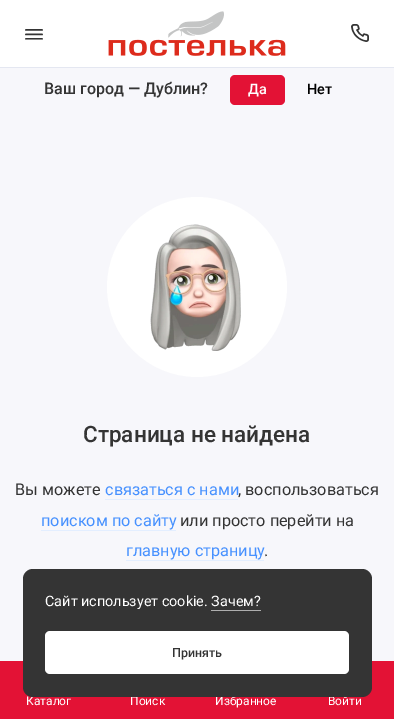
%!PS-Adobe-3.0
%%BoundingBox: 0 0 394 719
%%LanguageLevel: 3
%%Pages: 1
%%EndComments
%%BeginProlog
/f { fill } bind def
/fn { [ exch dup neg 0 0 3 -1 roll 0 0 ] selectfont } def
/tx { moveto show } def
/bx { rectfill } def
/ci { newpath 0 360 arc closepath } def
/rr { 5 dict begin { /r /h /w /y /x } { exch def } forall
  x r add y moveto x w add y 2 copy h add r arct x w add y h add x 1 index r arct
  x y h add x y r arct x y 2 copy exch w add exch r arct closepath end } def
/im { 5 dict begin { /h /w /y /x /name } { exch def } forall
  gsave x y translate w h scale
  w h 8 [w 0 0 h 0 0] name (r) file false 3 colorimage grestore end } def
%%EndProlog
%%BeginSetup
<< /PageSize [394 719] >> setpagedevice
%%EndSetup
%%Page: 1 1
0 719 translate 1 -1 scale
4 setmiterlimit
0.969 0.969 0.984 setrgbcolor
0 0 394 719 bx
/Roboto-Medium 16 fn
0.204 setgray
(Ваш город — Дублин?) 44 94 tx
0.89 0.071 0.208 setrgbcolor
230 75 55 30 5 rr f
/Roboto-Medium 14.4 fn
1 setgray
(Да) 248 94 tx
0 setgray
(Нет) 307 94 tx
1 setgray
197 287 90 ci f
(image0.raw) 150 224 91 127 im
/Roboto-Medium 22.5 fn
0.204 setgray
(Страница не найдена) 83 442 tx
/Roboto-Regular 16.25 fn
(Вы можете) 15 495 tx
0.278 0.569 1 setrgbcolor
(связаться с нами) 105 495 tx
0.89 0.933 1 setrgbcolor
105 499 133 1 bx
0.204 setgray
(, воспользоваться) 238 495 tx
0.278 0.569 1 setrgbcolor
(поиском по сайту) 41 526 tx
0.89 0.933 1 setrgbcolor
41 530 135 1 bx
0.204 setgray
(или просто перейти на) 180 526 tx
0.278 0.569 1 setrgbcolor
(главную страницу) 126 556 tx
0.89 0.933 1 setrgbcolor
126 560 138 1 bx
0.204 setgray
(.) 264 556 tx
0.89 0.071 0.208 setrgbcolor
0 661 394 58 bx
/Roboto-Regular 12 fn
1 setgray
(Каталог) 26 705 tx
(Поиск) 130 705 tx
(Избранное) 215 705 tx
(Войти) 328 705 tx
0.204 setgray
23 569 349 128 10 rr f
/Roboto-Regular 14.4 fn
1 setgray
(Сайт использует cookie. Зачем?) 45 606 tx
0.682 setgray
211 610 50 1 bx
1 setgray
45 631 304 43 5 rr f
/Roboto-Medium 12.5 fn
0.204 setgray
(Принять) 172 657 tx
1 setgray
0 0 394 67 bx
0.894 0.906 0.945 setrgbcolor
0 67 394 1 bx
(image1.raw) 25 29 18 11 im
(image2.raw) 108 11 178 45 im
(image3.raw) 351 24 18 18 im
showpage
%%EOF
